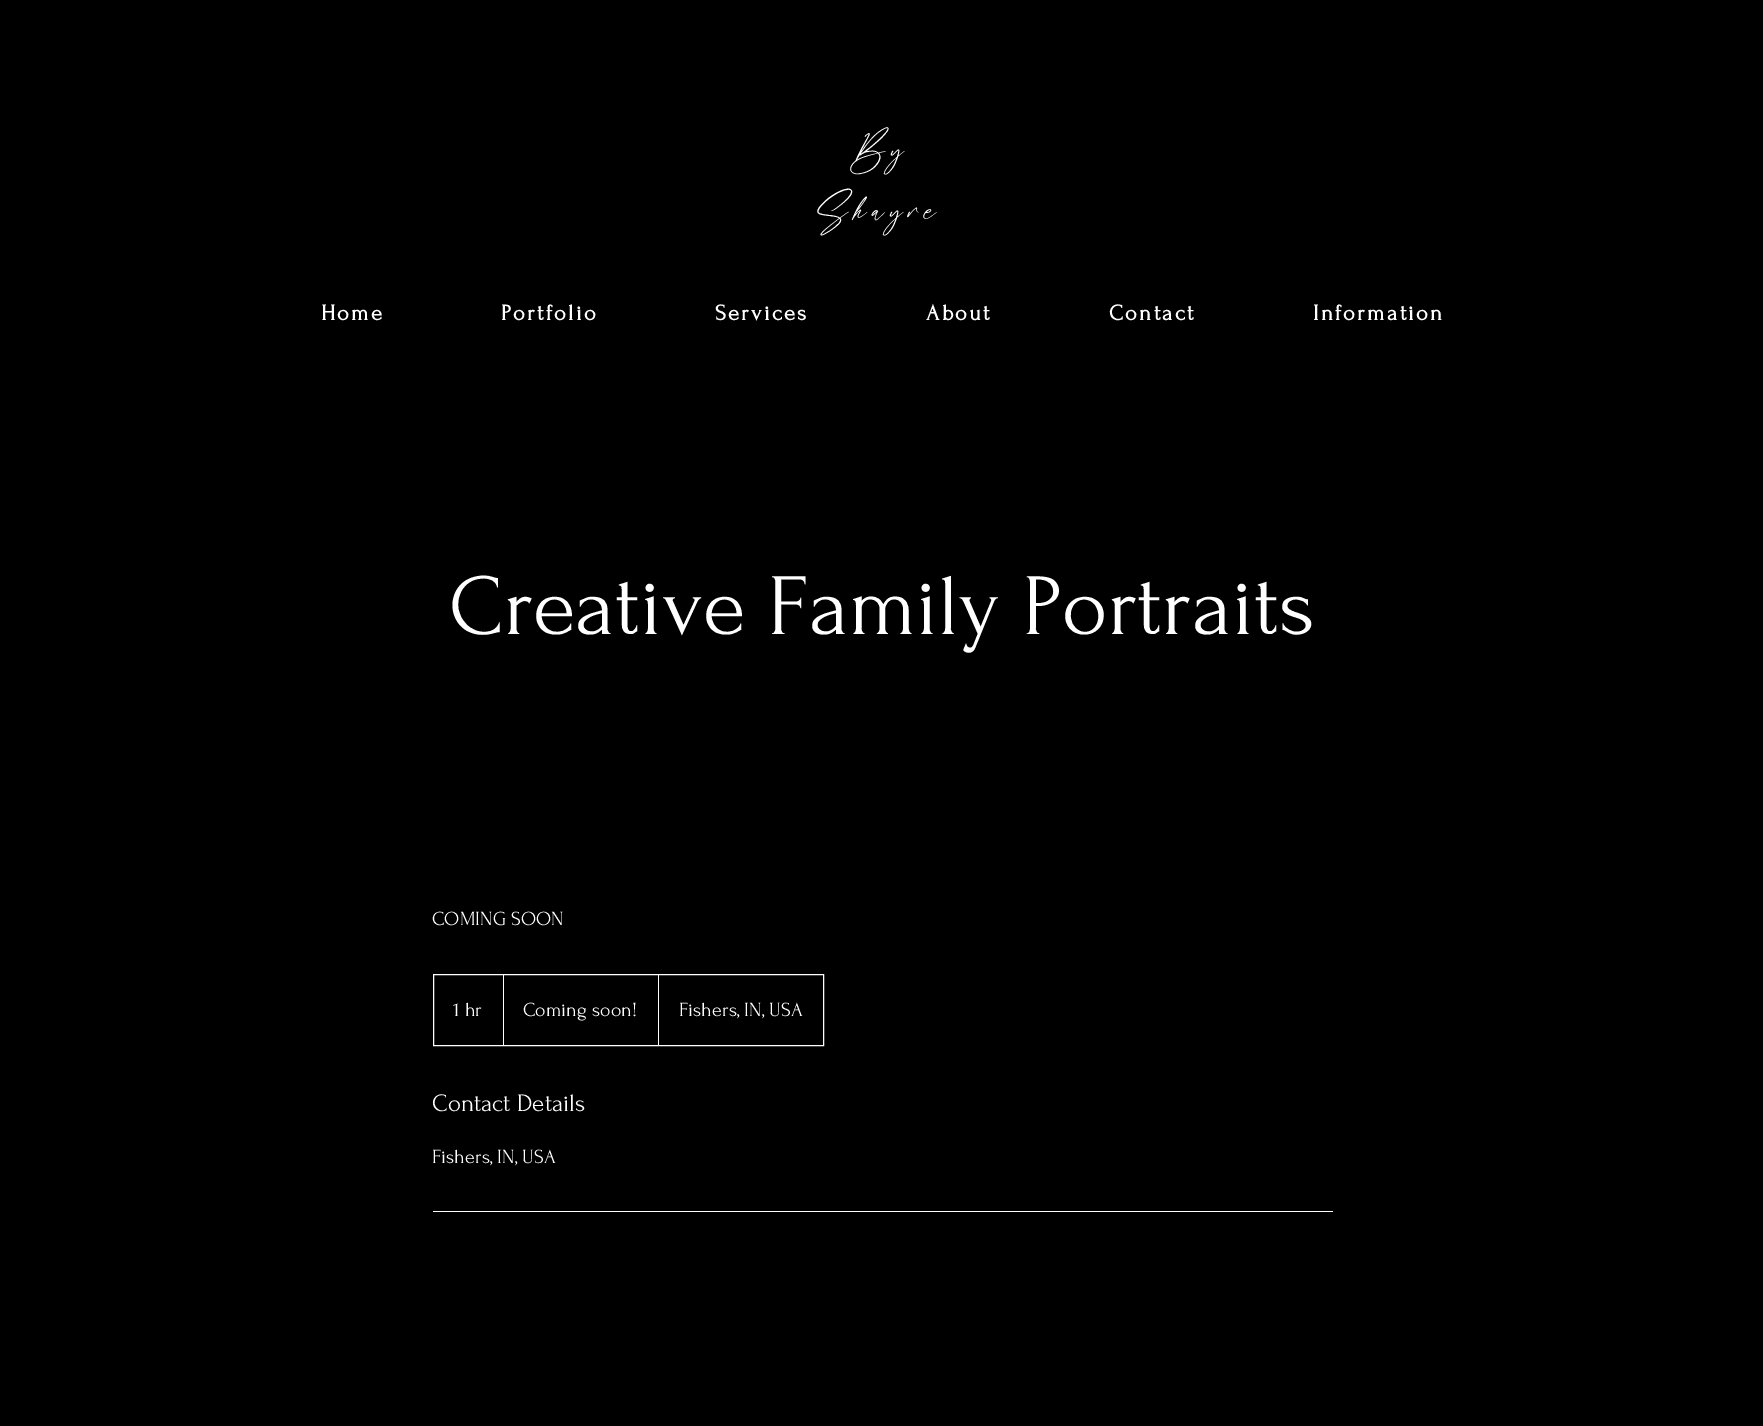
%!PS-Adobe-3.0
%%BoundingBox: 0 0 1763 1426
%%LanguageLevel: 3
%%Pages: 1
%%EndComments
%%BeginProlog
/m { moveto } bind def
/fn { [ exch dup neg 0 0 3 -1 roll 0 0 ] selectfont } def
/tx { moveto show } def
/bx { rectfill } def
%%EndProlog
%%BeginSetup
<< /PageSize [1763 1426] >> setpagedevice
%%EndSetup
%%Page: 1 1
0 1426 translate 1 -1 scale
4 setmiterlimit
0 setgray
0 0 1763 1426 bx
/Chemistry-Regular 44 fn
1 setgray
850 163 m 6.5 0 (By) ashow
817 224 m 6.5 0 (Shayre) ashow
/Forum-Bold 22.5 fn
321 320 m 2.25 0 (Home) ashow
501 320 m 2.25 0 (Portfolio) ashow
715 320 m 2.25 0 (Services) ashow
926 320 m 2.25 0 (About) ashow
1109 320 m 2.25 0 (Contact) ashow
1313 320 m 2.25 0 (Information) ashow
/Forum-Regular 87.5 fn
(Creative Family Portraits) 449 634 tx
/Forum-Regular 20 fn
(COMING SOON) 432 925 tx
433.5 974.5 390 71 rectstroke
(1 hr) 453 1016 tx
503 975 1 70 bx
(Coming soon!) 523 1016 tx
658 975 1 70 bx
(Fishers, IN, USA) 679 1016 tx
/Forum-Regular 25 fn
(Contact Details) 432 1111 tx
/Forum-Regular 20 fn
(Fishers, IN, USA) 432 1163 tx
433 1211 900 1 bx
showpage
%%EOF
